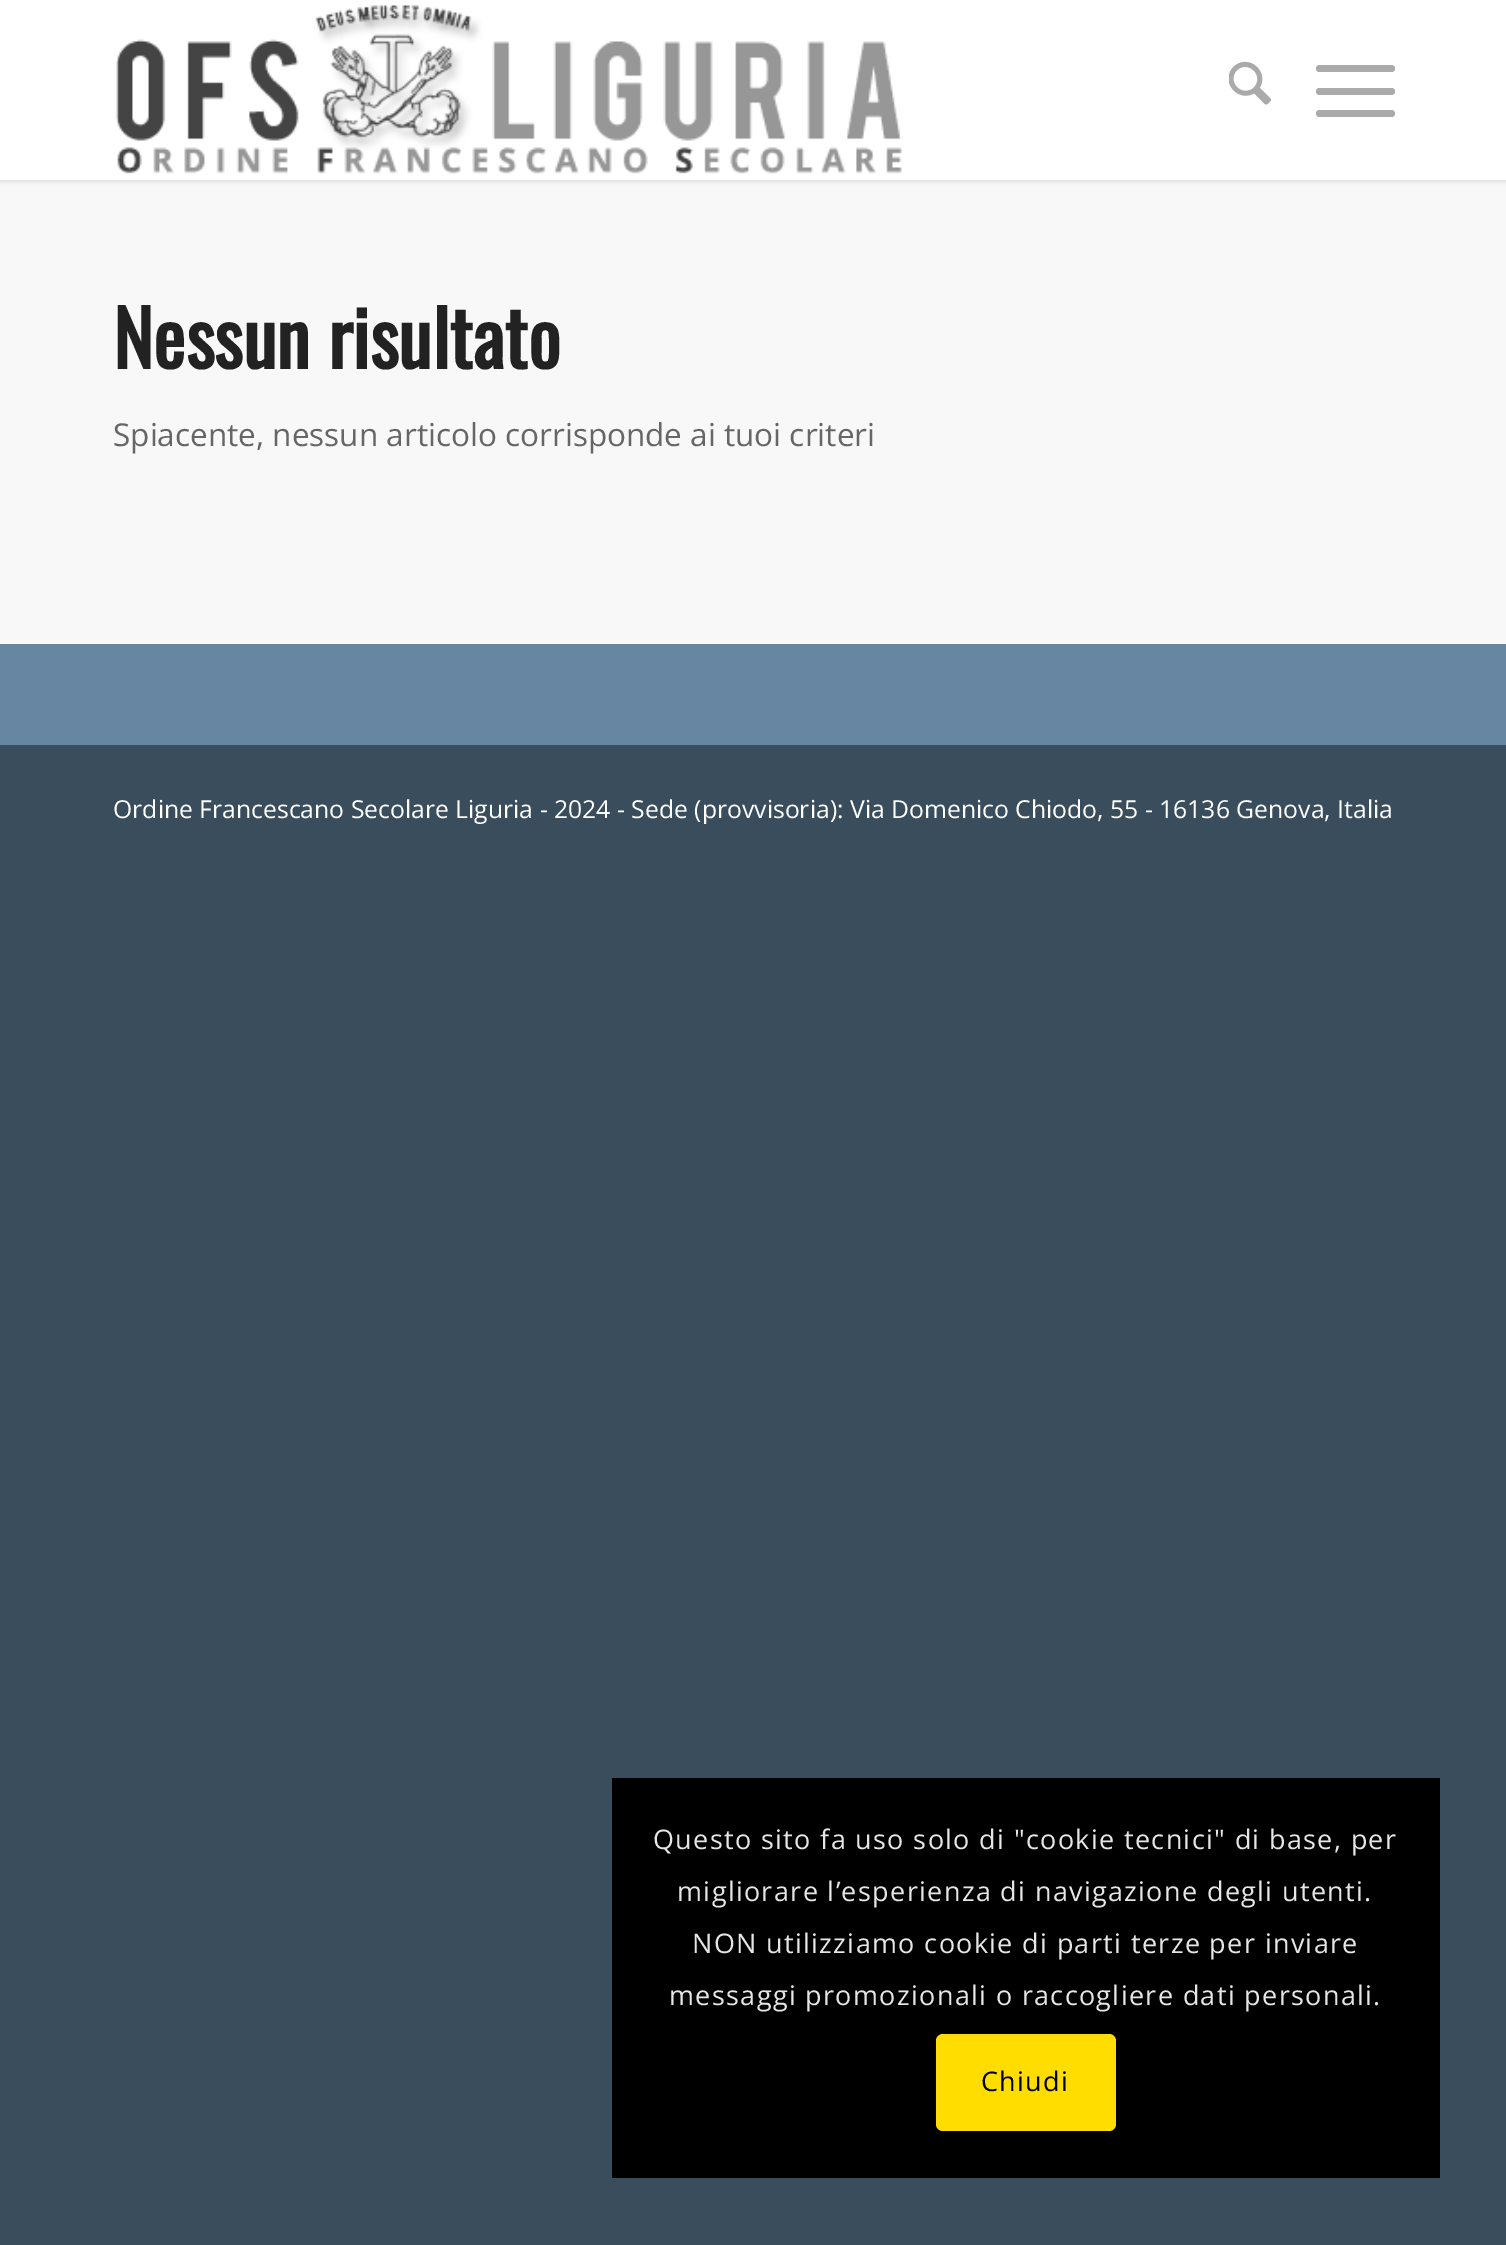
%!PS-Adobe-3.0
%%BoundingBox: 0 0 1506 2245
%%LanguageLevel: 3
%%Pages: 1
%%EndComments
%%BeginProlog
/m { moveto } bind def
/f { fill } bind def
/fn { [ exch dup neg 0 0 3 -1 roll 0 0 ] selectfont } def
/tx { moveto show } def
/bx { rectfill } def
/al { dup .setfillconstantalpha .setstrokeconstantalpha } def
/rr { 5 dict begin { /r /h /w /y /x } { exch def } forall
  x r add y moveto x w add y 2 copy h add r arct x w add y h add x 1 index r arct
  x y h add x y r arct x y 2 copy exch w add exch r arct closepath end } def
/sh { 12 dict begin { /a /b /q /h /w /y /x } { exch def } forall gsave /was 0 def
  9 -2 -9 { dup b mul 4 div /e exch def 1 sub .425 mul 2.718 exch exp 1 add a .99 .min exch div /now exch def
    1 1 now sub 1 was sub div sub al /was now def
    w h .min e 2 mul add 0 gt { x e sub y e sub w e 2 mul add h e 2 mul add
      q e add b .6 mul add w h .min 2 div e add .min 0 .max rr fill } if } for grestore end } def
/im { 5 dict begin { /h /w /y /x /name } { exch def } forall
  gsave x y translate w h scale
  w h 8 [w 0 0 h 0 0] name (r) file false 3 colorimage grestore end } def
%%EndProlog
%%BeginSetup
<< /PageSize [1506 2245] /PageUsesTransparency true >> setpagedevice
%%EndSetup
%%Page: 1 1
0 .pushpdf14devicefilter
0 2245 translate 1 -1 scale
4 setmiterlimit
0.227 0.302 0.361 setrgbcolor
0 0 1506 2245 bx
0.973 setgray
0 180 1506 464 bx
0 setgray
-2 -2 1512 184 0 2 0.1 sh
1 setgray
0 0 1506 180 bx
(image0.raw) 115 5 787 169 im
(image1.raw) 1229 61 42 44 im
0.667 setgray
1316 88 79 7 3.5 rr f
1316 65 79 7 3.5 rr f
1316 110 79 7 3.5 rr f
/Oswald-Bold 76.5 fn
0.133 setgray
(Nessun risultato) 113 369 tx
/OpenSans-Regular 31.5 fn
0.4 setgray
(Spiacente, nessun articolo corrisponde ai tuoi criteri) 113 446 tx
0.404 0.525 0.631 setrgbcolor
0 644 1506 101 bx
/OpenSans-Regular 24.75 fn
1 setgray
(Ordine Francescano Secolare Liguria - 2024 - Sede \(provvisoria\): Via Domenico Chiodo, 55 - 16136 Genova, Italia) 113 818 tx
0 setgray
612 1778 828 400 bx
/OpenSans-Regular 27 fn
0.902 setgray
653 1849 m 1.35 0 (Questo sito fa uso solo di "cookie tecnici" di base, per) ashow
677 1901 m 1.35 0 (migliorare l’esperienza di navigazione degli utenti.) ashow
692 1953 m 1.35 0 (NON utilizziamo cookie di parti terze per inviare) ashow
669 2005 m 1.35 0 (messaggi promozionali o raccogliere dati personali.) ashow
1 0.867 0 setrgbcolor
936 2034 180 97 7 rr f
0 setgray
981 2091 m 1.35 0 (Chiudi) ashow
.poppdf14devicefilter showpage
%%EOF
